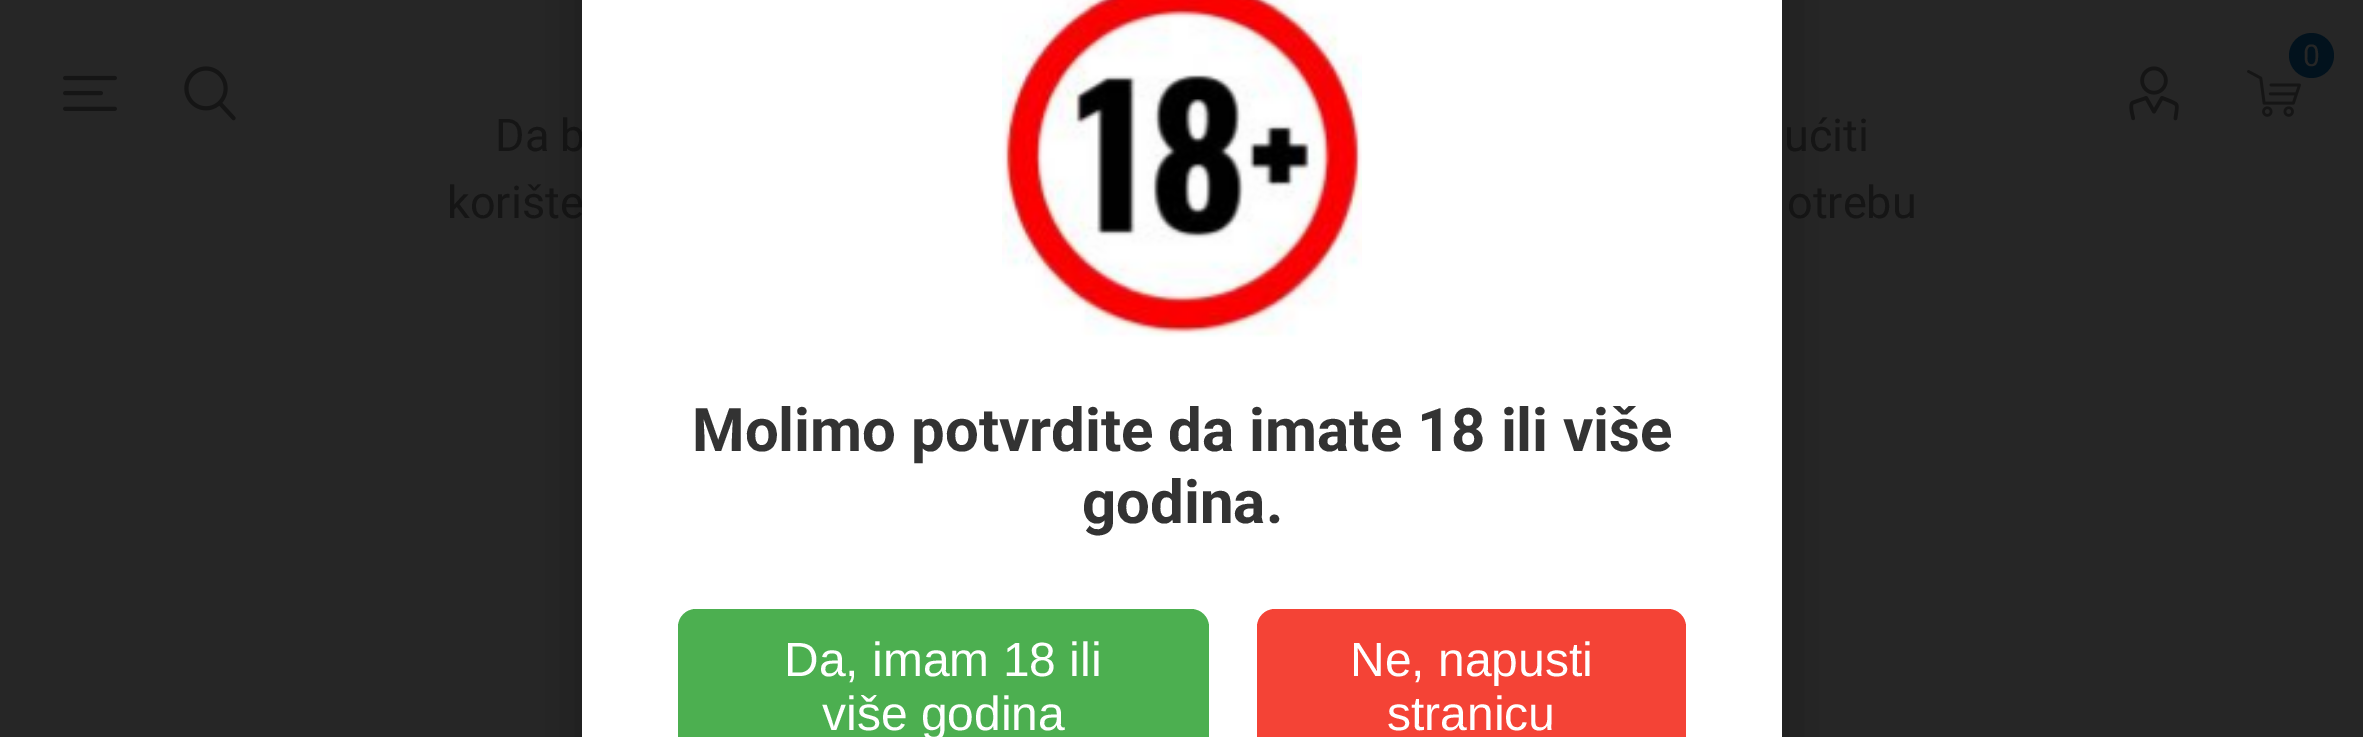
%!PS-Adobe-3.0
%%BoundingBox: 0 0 2363 737
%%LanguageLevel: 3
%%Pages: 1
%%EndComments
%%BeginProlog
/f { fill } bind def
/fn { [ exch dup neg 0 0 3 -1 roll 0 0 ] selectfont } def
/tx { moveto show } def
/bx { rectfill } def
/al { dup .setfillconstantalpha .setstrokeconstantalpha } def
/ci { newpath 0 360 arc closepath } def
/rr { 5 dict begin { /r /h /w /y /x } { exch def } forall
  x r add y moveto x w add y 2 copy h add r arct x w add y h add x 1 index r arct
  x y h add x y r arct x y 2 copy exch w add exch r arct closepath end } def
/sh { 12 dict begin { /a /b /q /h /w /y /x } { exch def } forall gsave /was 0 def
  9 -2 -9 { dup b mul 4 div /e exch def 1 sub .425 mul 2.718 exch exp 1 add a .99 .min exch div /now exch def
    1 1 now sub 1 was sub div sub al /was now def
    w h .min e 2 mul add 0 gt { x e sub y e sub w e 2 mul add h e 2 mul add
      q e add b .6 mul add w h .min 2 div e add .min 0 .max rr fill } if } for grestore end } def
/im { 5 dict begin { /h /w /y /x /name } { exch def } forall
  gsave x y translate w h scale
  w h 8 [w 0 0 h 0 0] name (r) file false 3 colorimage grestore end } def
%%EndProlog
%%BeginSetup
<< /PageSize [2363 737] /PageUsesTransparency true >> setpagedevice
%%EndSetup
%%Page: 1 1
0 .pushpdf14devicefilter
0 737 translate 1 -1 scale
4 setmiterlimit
0.149 setgray
0 0 2363 737 bx
(image0.raw) 2247 70 54 47 im
0.008 0.071 0.114 setrgbcolor
2311.5 55.5 22.5 ci f
/Roboto-Regular 30 fn
0.149 setgray
(0) 2303 66 tx
(image1.raw) 63 75 54 36 im
(image2.raw) 184 66 52 55 im
(image3.raw) 2129 66 50 55 im
/Roboto-Regular 45 fn
0.082 setgray
(Da b) 495 151 tx
(ućiti) 1784 151 tx
(korište) 447 218 tx
(otrebu) 1787 218 tx
0 setgray
582 -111 1200 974 36 30 0.3 sh
1 setgray
582 0 1200 737 bx
(image4.raw) 1002 0 360 337 im
/Roboto-Bold 60 fn
0.2 setgray
(Molimo potvrdite da imate 18 ili više) 692 451 tx
(godina.) 1082 523 tx
0.298 0.686 0.314 setrgbcolor
678 609 531 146 18 rr f
/LiberationSans-Regular 48 fn
1 setgray
(Da, imam 18 ili) 784 676 tx
(više godina) 822 730 tx
0.957 0.263 0.212 setrgbcolor
1257 609 429 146 18 rr f
1 setgray
(Ne, napusti) 1350 676 tx
(stranicu) 1387 730 tx
.poppdf14devicefilter showpage
%%EOF
